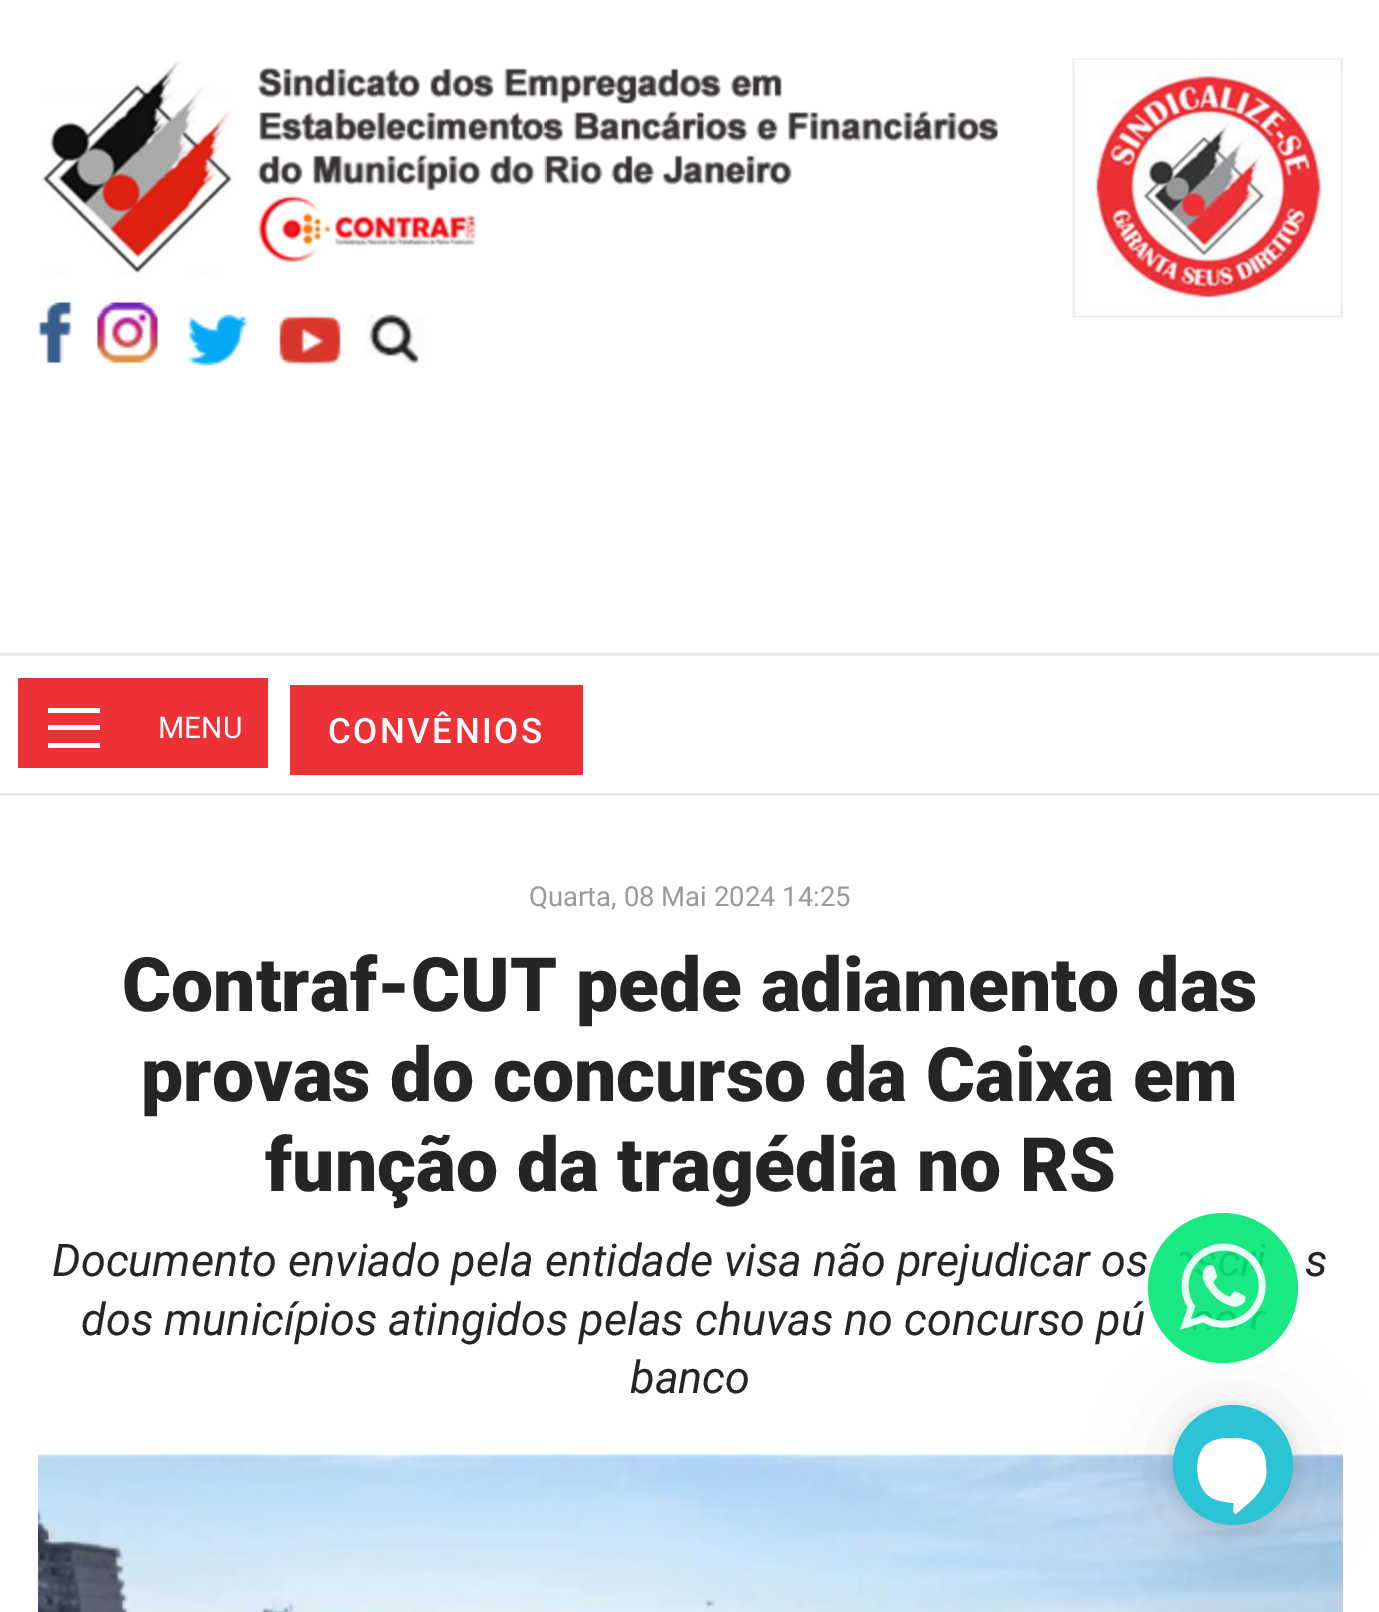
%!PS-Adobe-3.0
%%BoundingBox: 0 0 1379 1612
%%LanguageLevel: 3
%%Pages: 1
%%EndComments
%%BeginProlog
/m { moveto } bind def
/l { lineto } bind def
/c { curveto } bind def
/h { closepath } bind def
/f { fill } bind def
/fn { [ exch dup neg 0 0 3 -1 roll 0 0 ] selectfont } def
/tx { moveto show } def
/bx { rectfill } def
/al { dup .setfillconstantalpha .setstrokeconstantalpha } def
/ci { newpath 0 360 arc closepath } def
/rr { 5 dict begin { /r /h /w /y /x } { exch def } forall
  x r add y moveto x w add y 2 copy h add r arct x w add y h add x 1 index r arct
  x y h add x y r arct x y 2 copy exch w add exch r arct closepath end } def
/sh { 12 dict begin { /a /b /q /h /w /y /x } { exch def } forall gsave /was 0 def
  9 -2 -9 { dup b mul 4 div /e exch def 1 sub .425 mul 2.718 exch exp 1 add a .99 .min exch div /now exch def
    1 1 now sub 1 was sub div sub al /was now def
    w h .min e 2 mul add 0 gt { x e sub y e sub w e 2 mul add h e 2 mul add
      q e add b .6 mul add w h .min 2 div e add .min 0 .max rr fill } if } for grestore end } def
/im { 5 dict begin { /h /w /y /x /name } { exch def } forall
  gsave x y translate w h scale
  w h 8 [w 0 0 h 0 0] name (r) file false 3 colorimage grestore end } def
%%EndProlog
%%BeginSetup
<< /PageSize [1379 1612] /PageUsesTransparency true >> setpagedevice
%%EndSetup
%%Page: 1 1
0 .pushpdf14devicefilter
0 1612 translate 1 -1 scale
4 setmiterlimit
1 setgray
0 0 1379 1612 bx
(image0.raw) 42 60 956 214 im
(image1.raw) 38 302 35 61 im
(image2.raw) 97 302 61 61 im
(image3.raw) 187 314 61 52 im
(image4.raw) 279 315 62 50 im
(image5.raw) 365 314 60 51 im
(image6.raw) 1072 58 271 260 im
0.918 setgray
0 653 1379 3 bx
0.922 setgray
0 793 1379 3 bx
0.925 0.196 0.216 setrgbcolor
18 678 250 90 bx
1 setgray
48 708 52 5 bx
48 725 52 5 bx
48 743 52 5 bx
/Roboto-Regular 30 fn
(MENU) 158 738 tx
0.925 0.196 0.216 setrgbcolor
290 685 293 90 bx
/Roboto-Medium 35 fn
1 setgray
328 743 m 2.5 0 (CONVÊNIOS) ashow
/Roboto-Regular 27.5 fn
0.6 setgray
(Quarta, 08 Mai 2024 14:25) 529 906 tx
/Roboto-Black 75 fn
0.145 setgray
(Contraf-CUT pede adiamento das) 122 1011 tx
(provas do concurso da Caixa em) 141 1101 tx
(função da tragédia no RS) 265 1191 tx
/Roboto-Italic 45 fn
(Documento enviado pela entidade visa não prejudicar os) 52 1276 tx
(s) 1305 1276 tx
(dos municípios atingidos pelas chuvas no concurso pú) 81 1335 tx
(banco) 630 1393 tx
(image7.raw) 38 1454 1305 158 im
0 setgray
1173 1410 120 120 60 40 0.1 sh
0.9 al
0 0.902 0.463 setrgbcolor
1223 1288 75 ci f
1 al
(image8.raw) 1180 1243 86 87 im
0 setgray
1173 1408 120 120 60 7.5 0.1 sh
0.173 0.765 0.835 setrgbcolor
1233 1465 60 ci f
1 setgray
1231 1438 m 1222 1438 1213 1439 1206 1445 c 1193 1456 1195 1486 1209 1496 c 1214 1500 1220 1501 1226 1502 c 1233 1503 l 1235 1503 1231 1514 1236 1514 c 1244 1507 l 1251 1501 1258 1495 1262 1487 c 1266 1481 1267 1474 1266 1467 c 1266 1443 1251 1438 1231 1438 c h f
.poppdf14devicefilter showpage
%%EOF
